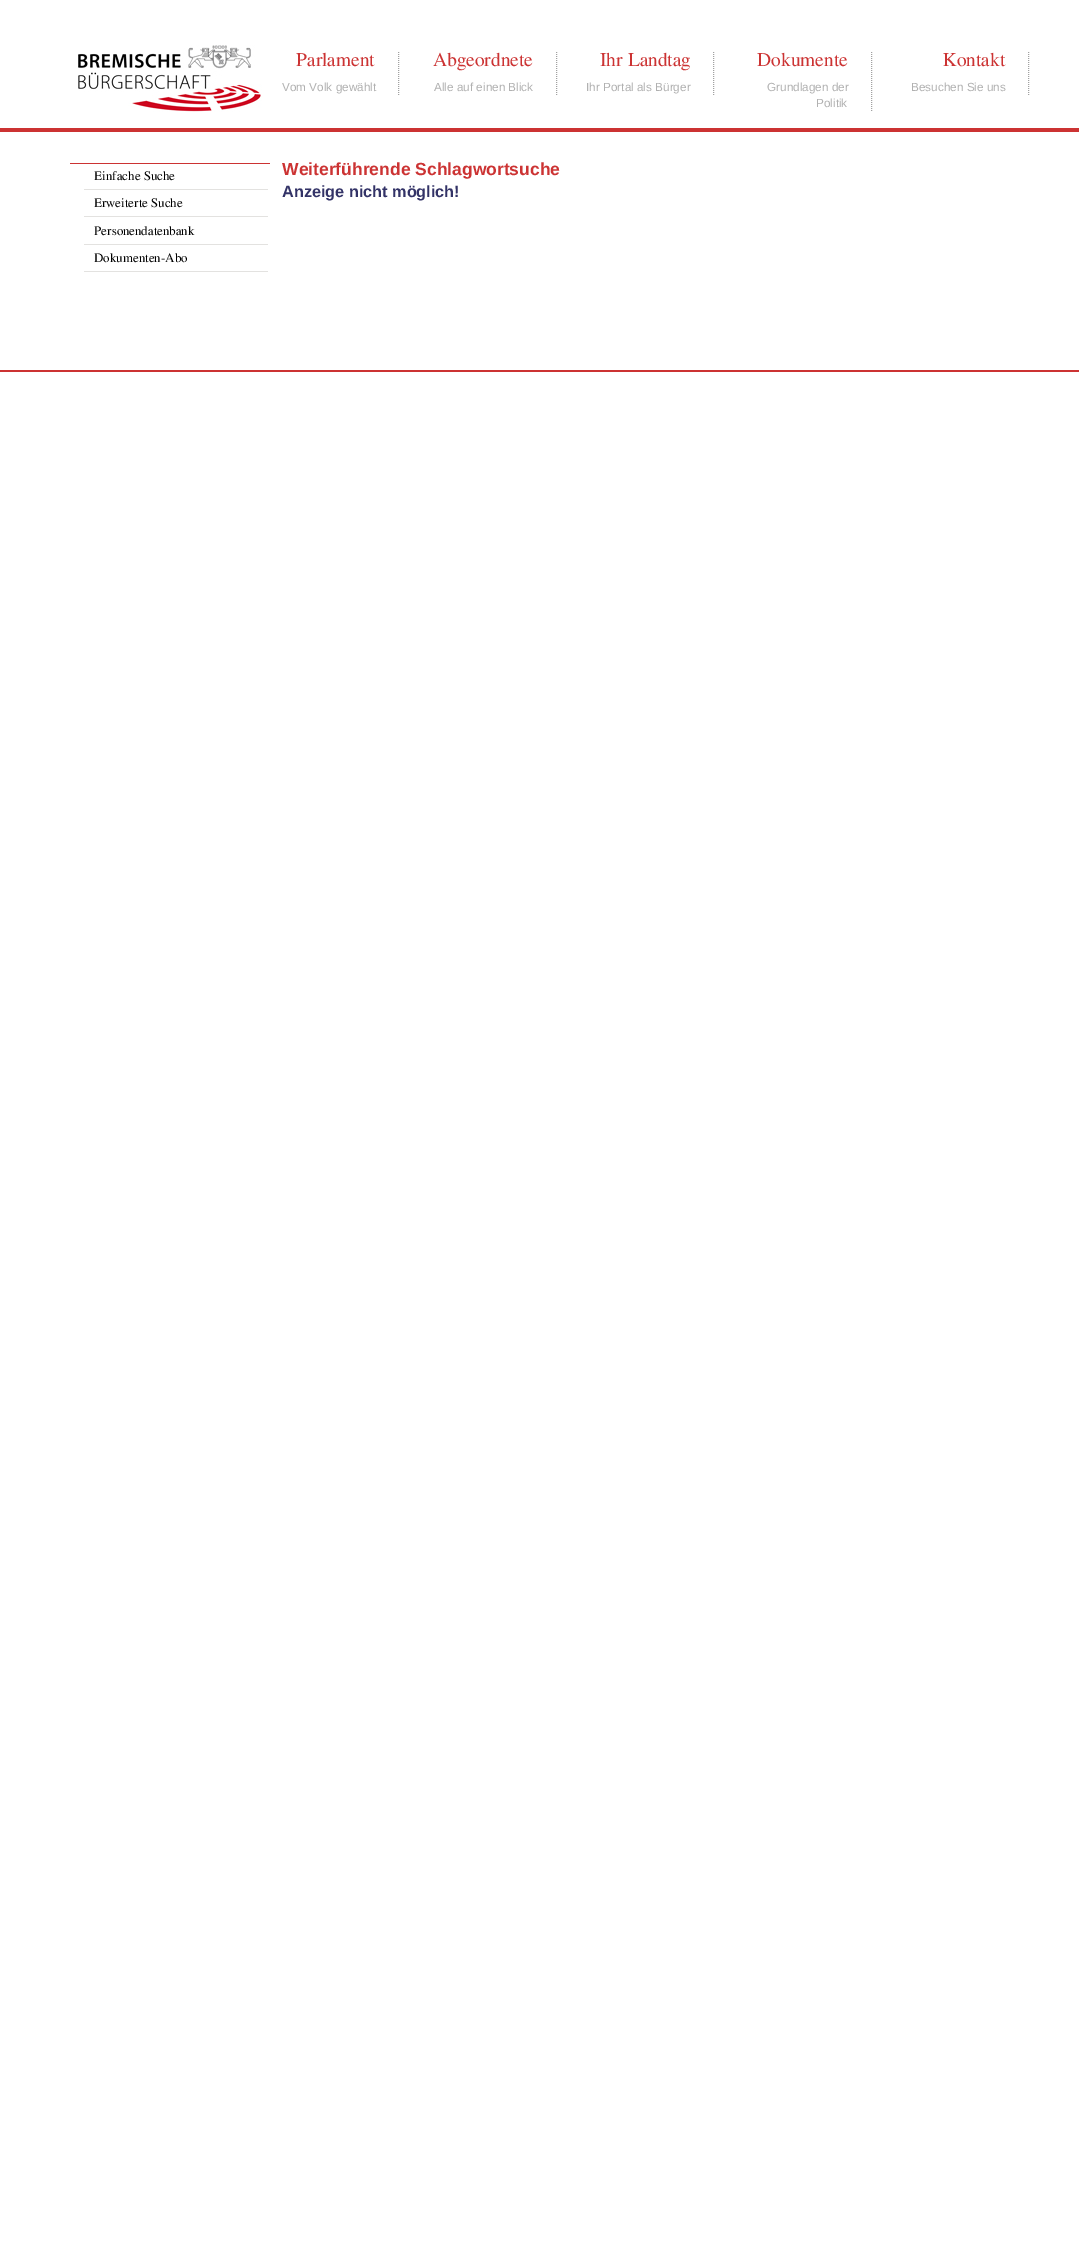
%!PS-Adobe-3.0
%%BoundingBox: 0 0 1079 2248
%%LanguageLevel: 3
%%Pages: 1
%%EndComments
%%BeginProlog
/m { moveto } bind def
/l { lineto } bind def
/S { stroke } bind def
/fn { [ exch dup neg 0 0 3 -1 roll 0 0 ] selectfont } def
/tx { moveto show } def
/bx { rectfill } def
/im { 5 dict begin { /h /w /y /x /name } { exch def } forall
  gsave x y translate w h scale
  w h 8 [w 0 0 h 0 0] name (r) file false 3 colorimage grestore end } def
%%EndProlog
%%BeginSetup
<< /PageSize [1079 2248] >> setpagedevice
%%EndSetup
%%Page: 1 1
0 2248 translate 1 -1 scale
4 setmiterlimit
1 setgray
0 0 1079 2248 bx
0.8 0.2 0.2 setrgbcolor
0 128 1079 4 bx
(image0.raw) 78 45 184 67 im
0.631 setgray
[1 1] 0 setdash
398.5 52 m 398.5 95 l S
/FreeSerif-Regular 19.5 fn
0.8 0.2 0.2 setrgbcolor
(Parlament) 296 66 tx
/LiberationSans-Regular 11.75 fn
0.694 setgray
(Vom Volk gewählt) 282 91 tx
0.631 setgray
556.5 52 m 556.5 95 l S
/FreeSerif-Regular 19.5 fn
0.8 0.2 0.2 setrgbcolor
(Abgeordnete) 433 66 tx
/LiberationSans-Regular 11.75 fn
0.694 setgray
(Alle auf einen Blick) 434 91 tx
0.631 setgray
713.5 52 m 713.5 95 l S
/FreeSerif-Regular 19.5 fn
0.8 0.2 0.2 setrgbcolor
(Ihr Landtag) 600 66 tx
/LiberationSans-Regular 11.75 fn
0.694 setgray
(Ihr Portal als Bürger) 586 91 tx
0.631 setgray
871.5 52 m 871.5 111 l S
/FreeSerif-Regular 19.5 fn
0.8 0.2 0.2 setrgbcolor
(Dokumente) 757 66 tx
/LiberationSans-Regular 11.75 fn
0.694 setgray
(Grundlagen der) 767 91 tx
(Politik) 816 107 tx
0.631 setgray
1028.5 52 m 1028.5 95 l S
/FreeSerif-Regular 19.5 fn
0.8 0.2 0.2 setrgbcolor
(Kontakt) 943 66 tx
/LiberationSans-Regular 11.75 fn
0.694 setgray
(Besuchen Sie uns) 911 91 tx
0.8 0.2 0.2 setrgbcolor
0 370 1079 2 bx
70 163 200 1 bx
0.89 0.886 0.878 setrgbcolor
84 189 184 1 bx
/FreeSerif-Regular 13 fn
0 setgray
(Einfache Suche) 94 180 tx
0.89 0.886 0.878 setrgbcolor
84 216 184 1 bx
0 setgray
(Erweiterte Suche) 94 207 tx
0.89 0.886 0.878 setrgbcolor
84 244 184 1 bx
0 setgray
(Personendatenbank) 94 235 tx
0.89 0.886 0.878 setrgbcolor
84 271 184 1 bx
0 setgray
(Dokumenten-Abo) 94 262 tx
/LiberationSans-Bold 17.5 fn
0.8 0.2 0.2 setrgbcolor
(Weiterführende Schlagwortsuche) 282 175 tx
/LiberationSans-Bold 16.25 fn
0.2 0.2 0.404 setrgbcolor
(Anzeige nicht möglich!) 282 197 tx
showpage
%%EOF
